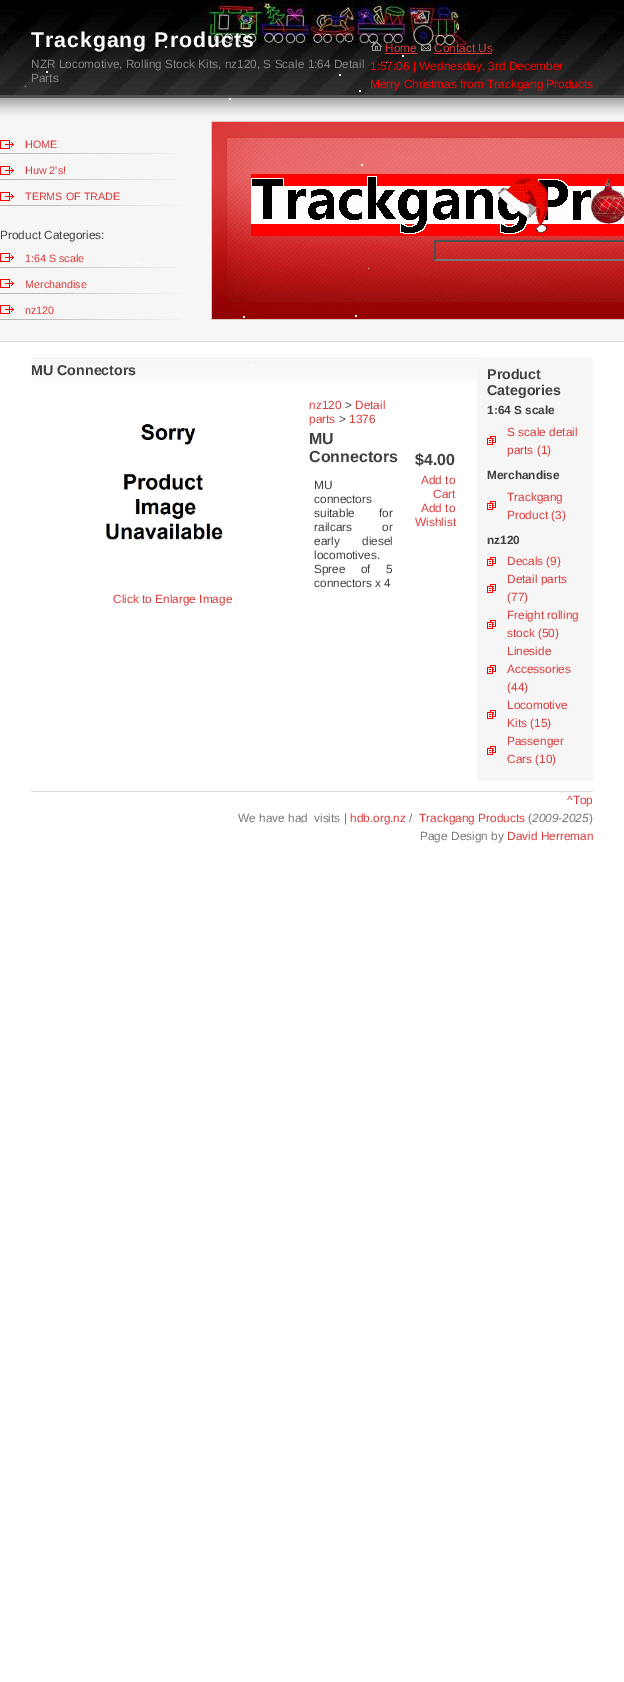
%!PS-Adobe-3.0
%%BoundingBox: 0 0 624 1682
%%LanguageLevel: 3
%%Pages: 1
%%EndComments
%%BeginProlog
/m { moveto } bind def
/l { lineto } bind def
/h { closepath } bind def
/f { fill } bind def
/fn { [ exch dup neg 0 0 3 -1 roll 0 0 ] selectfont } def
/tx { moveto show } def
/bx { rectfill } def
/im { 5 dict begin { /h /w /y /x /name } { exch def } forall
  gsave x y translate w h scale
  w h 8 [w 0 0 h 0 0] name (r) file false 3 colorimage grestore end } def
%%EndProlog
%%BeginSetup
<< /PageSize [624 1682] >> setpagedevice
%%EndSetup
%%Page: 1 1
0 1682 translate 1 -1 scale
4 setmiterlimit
1 setgray
0 0 624 1682 bx
(image0.raw) 0 0 624 121 im
/LiberationSans-Bold 21.25 fn
31 47 m 1 0 (Trackgang Products) ashow
(image1.raw) 371 41 11 10 im
/LiberationSans-Regular 11.85 fn
0.855 0.231 0.231 setrgbcolor
(Home) 385 52 tx
385 53 32 1 bx
(image2.raw) 421 44 10 7 im
(Contact Us) 434 52 tx
434 53 58 1 bx
1 0 0 setrgbcolor
(1:57:06 | Wednesday, 3rd December) 370 70 tx
(Merry Christmas from Trackgang Products) 370 88 tx
0.525 setgray
(NZR Locomotive, Rolling Stock Kits, nz120, S Scale 1:64 Detail) 31 68 tx
(Parts) 31 82 tx
1 setgray
108 40 1 1 bx
165 46 2 2 bx
402 55 2 2 bx
66 62 1 1 bx
386 62 1 1 bx
102 65 1 1 bx
46 71 2 2 bx
339 74 2 2 bx
25 86 1 1 bx
359 90 2 2 bx
229 98 2 2 bx
0.965 setgray
0 121 624 220 bx
1 setgray
23 125 1 1 bx
0.863 setgray
0 341 624 1 bx
(image3.raw) 0 153 181 1 im
(image4.raw) 0 140 14 9 im
/LiberationSans-Regular 10.75 fn
0.855 0.231 0.231 setrgbcolor
(HOME) 25 148 tx
(image3.raw) 0 179 181 1 im
(image4.raw) 0 166 14 9 im
(Huw 2's!) 25 174 tx
(image3.raw) 0 205 181 1 im
(image4.raw) 0 192 14 9 im
(TERMS OF TRADE) 25 200 tx
/LiberationSans-Regular 11.85 fn
0.251 setgray
(Product Categories:) 0 239 tx
(image3.raw) 0 267 181 1 im
(image4.raw) 0 253 14 9 im
/LiberationSans-Regular 10.75 fn
0.855 0.231 0.231 setrgbcolor
(1:64 S scale) 25 262 tx
(image3.raw) 0 293 181 1 im
(image4.raw) 0 279 14 9 im
(Merchandise) 25 288 tx
(image3.raw) 0 319 181 1 im
(image4.raw) 0 305 14 9 im
(nz120) 25 314 tx
(image5.raw) 211 121 413 199 im
(image6.raw) 251 174 373 62 im
0.31 setgray
434 240 m 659 240 l 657 242 l 436 242 l h f
0.463 setgray
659 261 m 434 261 l 436 259 l 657 259 l h f
0.31 setgray
434 261 m 434 240 l 436 242 l 436 259 l h f
1 setgray
361 164 2 2 bx
135 253 1 1 bx
137 262 2 2 bx
368 268 1 1 bx
243 316 2 2 bx
355 315 2 2 bx
(image7.raw) 31 358 446 23 im
/LiberationSans-Bold 14.25 fn
0.251 setgray
(MU Connectors) 31 375 tx
/LiberationSans-Regular 11.85 fn
0.855 0.231 0.231 setrgbcolor
(nz120) 309 409 tx
0.251 setgray
(>) 345 409 tx
0.855 0.231 0.231 setrgbcolor
(Detail) 355 409 tx
(parts) 309 423 tx
0.251 setgray
(>) 339 423 tx
0.855 0.231 0.231 setrgbcolor
(1376) 349 423 tx
/LiberationSans-Bold 16 fn
0.251 setgray
($4.00) 415 465 tx
(image8.raw) 102 422 123 121 im
/LiberationSans-Regular 11.85 fn
0.855 0.231 0.231 setrgbcolor
(Click to Enlarge Image) 113 603 tx
/LiberationSans-Bold 16 fn
0.251 setgray
(MU) 309 444 tx
(Connectors) 309 462 tx
/LiberationSans-Regular 11.85 fn
(MU) 314 489 tx
(connectors) 314 503 tx
314 517 m 21 0 32 (suitable for) widthshow
314 531 m 27 0 32 (railcars or) widthshow
314 545 m 19 0 32 (early diesel) widthshow
(locomotives.) 314 559 tx
314 573 m 12 0 32 (Spree of 5) widthshow
(connectors x 4) 314 587 tx
0.855 0.231 0.231 setrgbcolor
(Add to) 421 484 tx
(Cart) 433 498 tx
(Add to) 421 512 tx
(Wishlist) 415 526 tx
0.965 setgray
477 357 116 424 bx
/LiberationSans-Bold 14.25 fn
0.251 setgray
(Product) 487 379 tx
(Categories) 487 395 tx
/LiberationSans-Bold 11.85 fn
(1:64 S scale) 487 414 tx
(image9.raw) 487 436 9 9 im
/LiberationSans-Regular 11.85 fn
0.855 0.231 0.231 setrgbcolor
(S scale detail) 507 436 tx
(parts \(1\)) 507 454 tx
/LiberationSans-Bold 11.85 fn
0.251 setgray
(Merchandise) 487 479 tx
(image9.raw) 487 501 9 9 im
/LiberationSans-Regular 11.85 fn
0.855 0.231 0.231 setrgbcolor
(Trackgang) 507 501 tx
(Product \(3\)) 507 519 tx
/LiberationSans-Bold 11.85 fn
0.251 setgray
(nz120) 487 544 tx
(image9.raw) 487 557 9 9 im
/LiberationSans-Regular 11.85 fn
0.855 0.231 0.231 setrgbcolor
(Decals \(9\)) 507 565 tx
(image9.raw) 487 584 9 9 im
(Detail parts) 507 583 tx
(\(77\)) 507 601 tx
(image9.raw) 487 620 9 9 im
(Freight rolling) 507 619 tx
(stock \(50\)) 507 637 tx
(image9.raw) 487 665 9 9 im
(Lineside) 507 655 tx
(Accessories) 507 673 tx
(\(44\)) 507 691 tx
(image9.raw) 487 710 9 9 im
(Locomotive) 507 709 tx
(Kits \(15\)) 507 727 tx
(image9.raw) 487 746 9 9 im
(Passenger) 507 745 tx
(Cars \(10\)) 507 763 tx
0.863 setgray
31 791 562 1 bx
0.855 0.231 0.231 setrgbcolor
(^Top) 567 804 tx
0.467 setgray
(We have had) 238 822 tx
(visits |) 314 822 tx
0.855 0.231 0.231 setrgbcolor
(hdb.org.nz) 350 822 tx
0.467 setgray
(/) 409 822 tx
0.855 0.231 0.231 setrgbcolor
(Trackgang Products) 419 822 tx
0.467 setgray
(\() 528 822 tx
/LiberationSans-Italic 11.85 fn
(2009-2025) 532 822 tx
/LiberationSans-Regular 11.85 fn
(\)) 589 822 tx
(Page Design by) 420 840 tx
0.855 0.231 0.231 setrgbcolor
(David Herreman) 507 840 tx
1 setgray
250 365 2 2 bx
showpage
%%EOF
